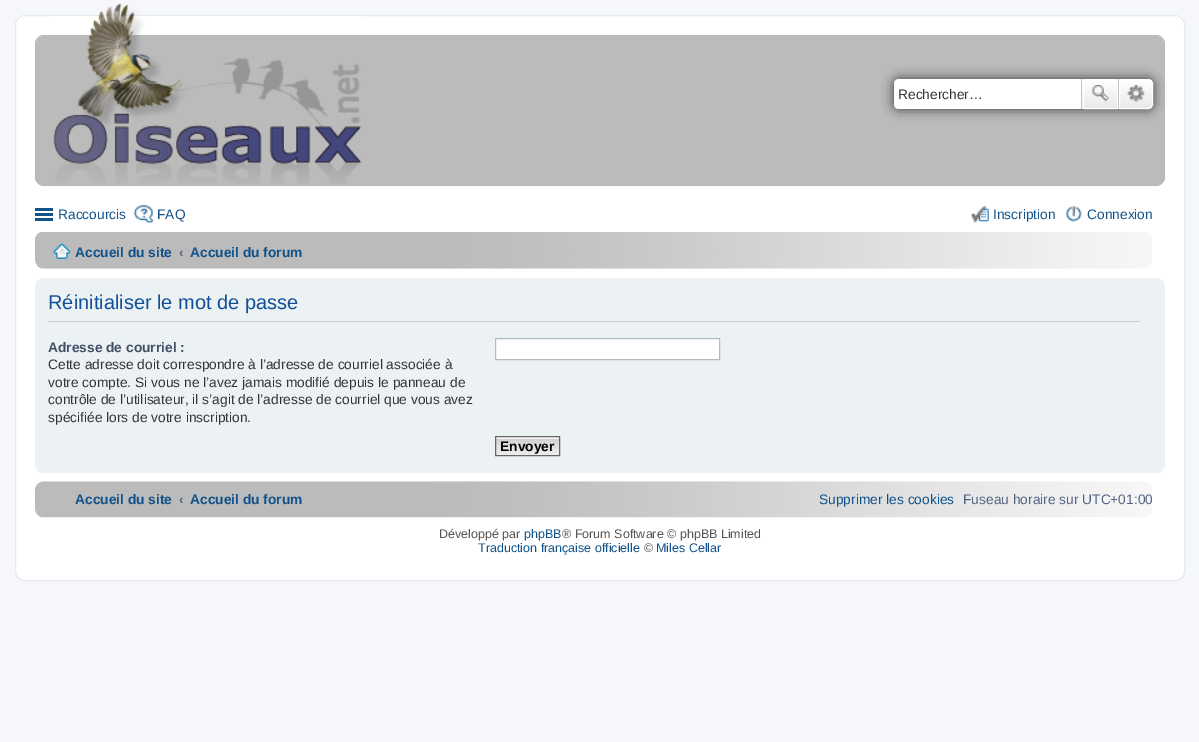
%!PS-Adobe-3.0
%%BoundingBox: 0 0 1199 742
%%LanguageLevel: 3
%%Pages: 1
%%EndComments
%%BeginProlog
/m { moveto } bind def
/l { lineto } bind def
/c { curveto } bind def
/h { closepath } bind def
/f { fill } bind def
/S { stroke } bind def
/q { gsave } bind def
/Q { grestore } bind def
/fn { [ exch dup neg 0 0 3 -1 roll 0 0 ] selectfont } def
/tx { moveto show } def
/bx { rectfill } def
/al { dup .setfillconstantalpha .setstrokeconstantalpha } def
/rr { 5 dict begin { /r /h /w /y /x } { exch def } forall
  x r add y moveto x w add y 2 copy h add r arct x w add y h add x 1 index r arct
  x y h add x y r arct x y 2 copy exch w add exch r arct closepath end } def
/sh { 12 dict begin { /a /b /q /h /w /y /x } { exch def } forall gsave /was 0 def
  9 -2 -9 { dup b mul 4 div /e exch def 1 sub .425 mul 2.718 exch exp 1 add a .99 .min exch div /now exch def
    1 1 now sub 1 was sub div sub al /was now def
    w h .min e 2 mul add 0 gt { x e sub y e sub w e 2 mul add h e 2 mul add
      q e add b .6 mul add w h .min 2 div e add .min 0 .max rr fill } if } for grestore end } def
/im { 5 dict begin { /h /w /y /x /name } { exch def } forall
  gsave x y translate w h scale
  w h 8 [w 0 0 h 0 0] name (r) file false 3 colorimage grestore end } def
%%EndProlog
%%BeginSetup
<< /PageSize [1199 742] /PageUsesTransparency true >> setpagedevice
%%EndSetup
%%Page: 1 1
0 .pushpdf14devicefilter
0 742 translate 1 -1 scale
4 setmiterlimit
0.961 0.969 0.98 setrgbcolor
0 0 1199 742 bx
1 setgray
15.5 15.5 1169 565 9.5 rr q f Q
0.902 0.914 0.929 setrgbcolor
S
0.733 setgray
35 35 1130 151 9 rr f
(image0.raw) 53 3 309 181 im
0.2 setgray
894 79 259 30 5 6 1 sh
1 setgray
899 79 m 1081 79 l 1081 109 l 899 109 l 896 109 894 107 894 104 c 894 84 l 894 81 896 79 899 79 c h f
/LiberationSans-Regular 13.75 fn
0.2 setgray
(Rechercher…) 898 99 tx
q 1082 79 m 1117 79 l 1117 109 l 1082 109 l h clip newpath
<< /ShadingType 2 /ColorSpace /DeviceRGB /Coords [1100 79 1100 109] /Extend [true true] /Function << /FunctionType 2 /Domain [0 1] /C0 [1 1 1] /C1 [0.914 0.914 0.914] /N 1 >> >> shfill Q
1 setgray
1083.5 79.5 34 29 rectstroke
0.78 0.765 0.749 setrgbcolor
1118 79 1 30 bx
1081 79 1 30 bx
(image1.raw) 1092 85 17 17 im
q 1119.5 79.5 m 1148 79.5 l 1150.5 79.5 1152.5 81.5 1152.5 84 c 1152.5 104 l 1152.5 106.5 1150.5 108.5 1148 108.5 c 1119.5 108.5 l h clip newpath
<< /ShadingType 2 /ColorSpace /DeviceRGB /Coords [1136 79 1136 109] /Extend [true true] /Function << /FunctionType 2 /Domain [0 1] /C0 [1 1 1] /C1 [0.914 0.914 0.914] /N 1 >> >> shfill Q
1 setgray
1119.5 79.5 m 1148 79.5 l 1150.5 79.5 1152.5 81.5 1152.5 84 c 1152.5 104 l 1152.5 106.5 1150.5 108.5 1148 108.5 c 1119.5 108.5 l h S
(image2.raw) 1127 85 18 17 im
0.063 0.322 0.537 setrgbcolor
35 208 18 3 bx
35 213 18 3 bx
35 218 18 3 bx
(Raccourcis) 58 219 tx
(image3.raw) 133 205 21 18 im
(FAQ) 157 219 tx
(image4.raw) 971 206 18 17 im
(Inscription) 993 219 tx
(image5.raw) 1066 206 16 16 im
(Connexion) 1087 219 tx
(image6.raw) 35 232 1117 37 im
(image7.raw) 53 243 17 16 im
/LiberationSans-Bold 13.75 fn
(Accueil du site) 75 257 tx
0.325 0.392 0.51 setrgbcolor
(‹) 179 257 tx
0.063 0.322 0.537 setrgbcolor
(Accueil du forum) 190 257 tx
0.925 0.945 0.953 setrgbcolor
35 278 1130 195 9 rr f
0.8 setgray
48 321 1092 1 bx
/LiberationSans-Regular 20 fn
0.067 0.314 0.596 setrgbcolor
(Réinitialiser le mot de passe) 48 309 tx
/LiberationSans-Bold 13.75 fn
0.259 0.314 0.404 setrgbcolor
(Adresse de courriel :) 48 352 tx
/LiberationSans-Regular 13.75 fn
0.2 setgray
(Cette adresse doit correspondre à l’adresse de courriel associée à) 48 369 tx
(votre compte. Si vous ne l’avez jamais modifié depuis le panneau de) 48 387 tx
(contrôle de l’utilisateur, il s’agit de l’adresse de courriel que vous avez) 48 404 tx
(spécifiée lors de votre inscription.) 48 422 tx
1 setgray
495.5 338.5 m 719.5 338.5 l 719.5 359.5 l 495.5 359.5 l h q f Q
0.706 0.729 0.753 setrgbcolor
S
0.98 setgray
496 437 63 1 bx
(image8.raw) 496 438 63 17 im
0.4 setgray
495.5 436.5 64 19 rectstroke
/LiberationSans-Bold 13.75 fn
0 setgray
(Envoyer) 500 451 tx
(image9.raw) 35 481 1117 37 im
0.063 0.322 0.537 setrgbcolor
(Accueil du site) 75 504 tx
0.325 0.392 0.51 setrgbcolor
(‹) 179 504 tx
0.063 0.322 0.537 setrgbcolor
(Accueil du forum) 190 504 tx
/LiberationSans-Regular 13.75 fn
(Supprimer les cookies) 819 504 tx
0.325 0.392 0.51 setrgbcolor
(Fuseau horaire sur UTC+01:00) 963 504 tx
/LiberationSans-Regular 12.5 fn
0.333 setgray
(Développé par) 439 538 tx
0.063 0.322 0.537 setrgbcolor
(phpBB) 524 538 tx
0.333 setgray
(® Forum Software © phpBB Limited) 562 538 tx
0.063 0.322 0.537 setrgbcolor
(Traduction française officielle) 478 552 tx
0.333 setgray
(©) 644 552 tx
0.063 0.322 0.537 setrgbcolor
(Miles Cellar) 656 552 tx
.poppdf14devicefilter showpage
%%EOF
